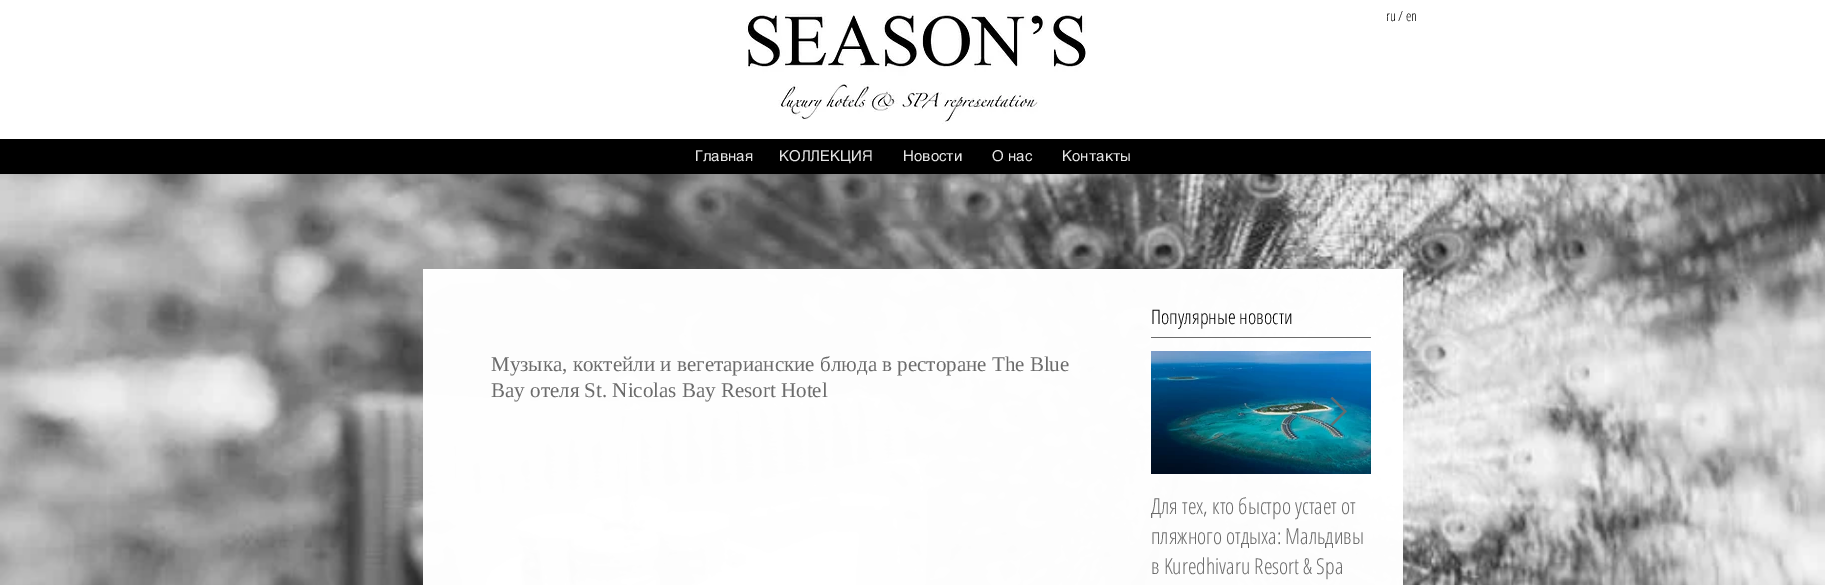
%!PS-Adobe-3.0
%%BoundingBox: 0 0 1825 585
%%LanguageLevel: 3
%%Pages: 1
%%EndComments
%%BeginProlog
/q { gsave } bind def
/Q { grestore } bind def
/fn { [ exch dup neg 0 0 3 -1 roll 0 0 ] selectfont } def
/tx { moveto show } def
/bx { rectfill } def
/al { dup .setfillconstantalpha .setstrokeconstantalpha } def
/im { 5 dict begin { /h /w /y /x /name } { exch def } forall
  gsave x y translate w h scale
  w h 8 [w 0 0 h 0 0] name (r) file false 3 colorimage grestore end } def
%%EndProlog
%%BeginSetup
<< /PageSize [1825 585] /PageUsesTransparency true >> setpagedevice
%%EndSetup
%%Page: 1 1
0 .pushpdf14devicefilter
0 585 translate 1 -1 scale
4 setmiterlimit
1 setgray
0 0 1825 585 bx
(image0.raw) 746 0 340 124 im
/OpenSansCondensed-Light 14 fn
0 setgray
(ru / en) 1386 21 tx
0 139 1825 35 bx
/helvetica-Regular 15 fn
0.894 setgray
(Главная) 695 161 tx
(КOЛЛЕКЦИЯ) 779 161 tx
(Новости) 903 161 tx
(О нас) 992 161 tx
(Контакты) 1062 161 tx
(image3.raw) 0 174 1825 411 im
0.99 al
1 setgray
423 269 980 316 bx
/OpenSansCondensed-Light 20 fn
1 al
0 setgray
(Популярные новости) 1151 324 tx
0.42 setgray
1151 337 220 1 bx
/LiberationSerif-Regular 21 fn
(Музыка, коктейли и вегетарианские блюда в ресторане The Blue) 491 371 tx
(Bay отеля St. Nicolas Bay Resort Hotel) 491 397 tx
(image2.raw) 1151 351 220 123 im
(image1.raw) 1330 397 17 29 im
q
1151 490 220 90 rectclip
/OpenSansCondensed-Light 22 fn
(Для тех, кто быстро устает от) 1151 514 tx
Q
/OpenSansCondensed-Light 22 fn
(пляжного отдыха: Мальдивы) 1151 544 tx
(в Kuredhivaru Resort & Spa) 1151 574 tx
.poppdf14devicefilter showpage
%%EOF
